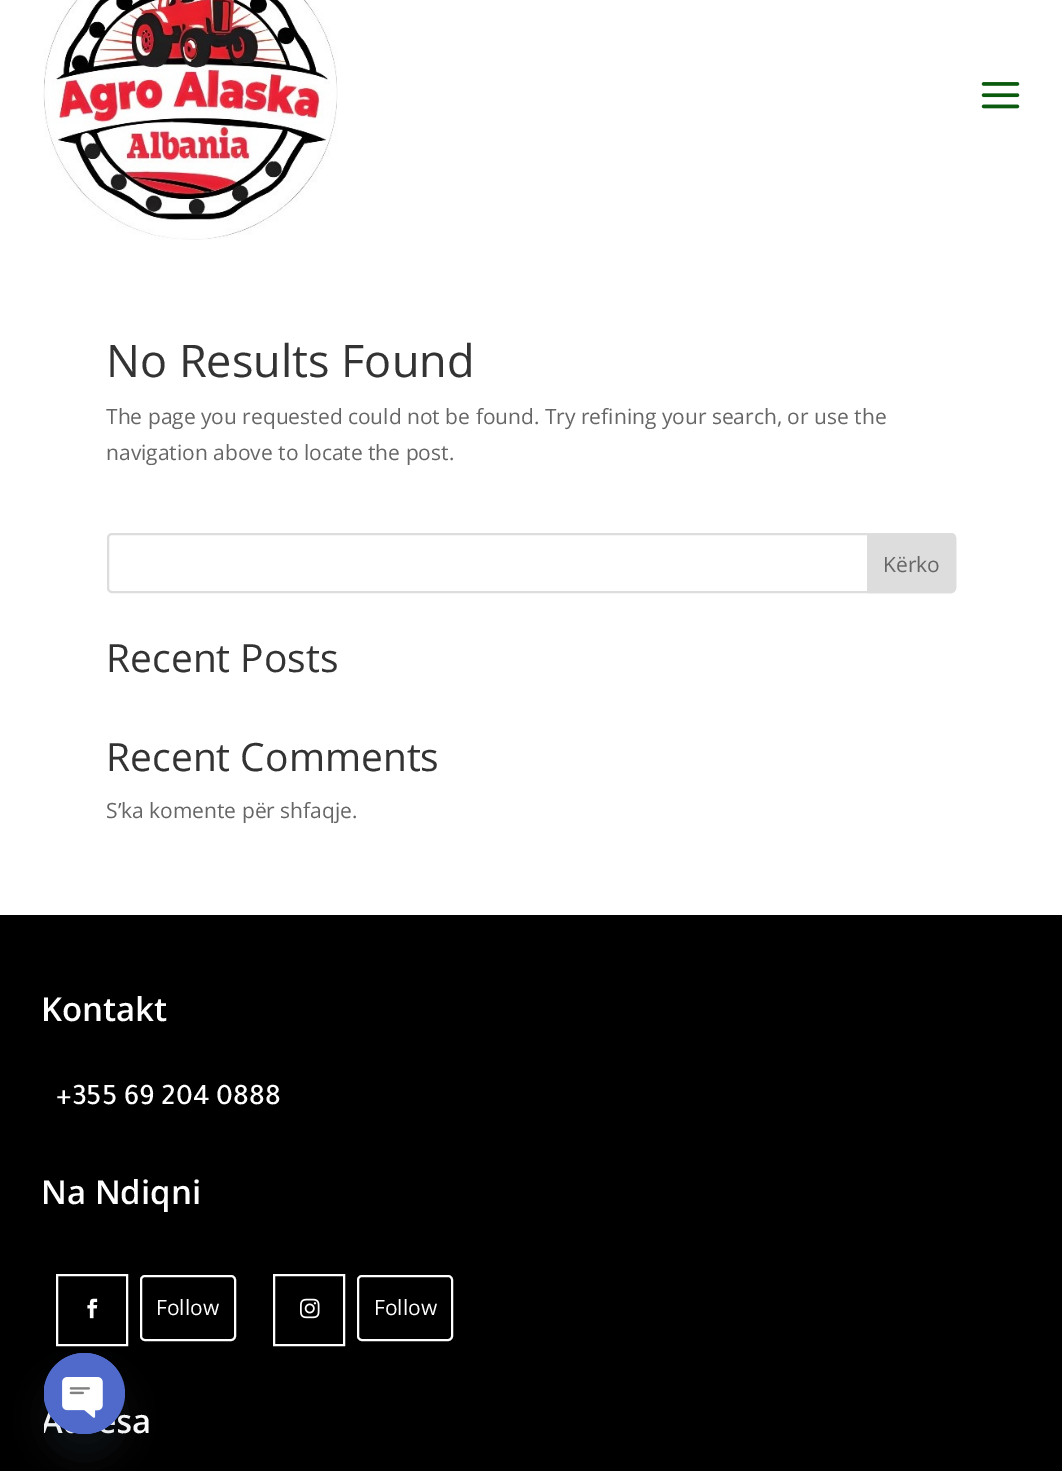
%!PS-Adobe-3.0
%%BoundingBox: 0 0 1062 1471
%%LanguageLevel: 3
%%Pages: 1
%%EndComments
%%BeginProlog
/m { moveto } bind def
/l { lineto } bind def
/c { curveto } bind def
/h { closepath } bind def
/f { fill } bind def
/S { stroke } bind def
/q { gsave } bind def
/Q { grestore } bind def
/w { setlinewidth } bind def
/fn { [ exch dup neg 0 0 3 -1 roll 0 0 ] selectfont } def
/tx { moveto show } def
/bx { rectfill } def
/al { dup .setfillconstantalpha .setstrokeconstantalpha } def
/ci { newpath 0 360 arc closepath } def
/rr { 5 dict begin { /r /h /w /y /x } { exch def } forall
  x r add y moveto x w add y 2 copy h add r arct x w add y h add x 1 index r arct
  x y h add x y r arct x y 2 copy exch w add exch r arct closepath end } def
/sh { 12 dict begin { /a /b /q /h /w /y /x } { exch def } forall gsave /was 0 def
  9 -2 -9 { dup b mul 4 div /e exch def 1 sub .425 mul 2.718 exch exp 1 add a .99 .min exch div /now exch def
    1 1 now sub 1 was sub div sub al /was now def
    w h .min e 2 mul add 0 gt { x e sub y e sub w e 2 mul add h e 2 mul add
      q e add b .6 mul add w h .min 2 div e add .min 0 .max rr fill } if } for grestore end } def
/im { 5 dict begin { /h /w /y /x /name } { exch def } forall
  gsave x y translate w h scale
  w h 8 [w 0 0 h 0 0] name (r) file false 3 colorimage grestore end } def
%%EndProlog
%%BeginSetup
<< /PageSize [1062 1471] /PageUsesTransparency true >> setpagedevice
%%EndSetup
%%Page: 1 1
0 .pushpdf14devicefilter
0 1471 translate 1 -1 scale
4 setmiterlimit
1 setgray
0 0 1062 1471 bx
(image0.raw) 43 0 295 240 im
(image1.raw) 981 82 39 27 im
/OpenSans-Regular 45 fn
0.2 setgray
(No Results Found) 106 377 tx
/OpenSans-Regular 21 fn
0.4 setgray
(The page you requested could not be found. Try refining your search, or use the) 106 424 tx
(navigation above to locate the post.) 106 460 tx
0.867 setgray
2 w
108 534 847 58 4 rr S
868 534 m 951 534 l 953 534 955 536 955 538 c 955 588 l 955 590 953 592 951 592 c 868 592 l h q f Q
S
0.4 setgray
(Kërko) 883 572 tx
/OpenSans-Regular 39 fn
0.2 setgray
(Recent Posts) 106 672 tx
(Recent Comments) 106 771 tx
/OpenSans-Regular 21 fn
0.4 setgray
(S’ka komente për shfaqje.) 106 818 tx
0 setgray
0 915 1062 556 bx
/OpenSans-SemiBold 33 fn
1 setgray
(Kontakt) 41 1021 tx
/Tajawal-Medium 30 fn
(+355 69 204 0888) 56 1104 tx
/OpenSans-SemiBold 33 fn
(Na Ndiqni) 41 1204 tx
57 1275 70 70 rectstroke
(image2.raw) 87 1298 11 21 im
141 1276 94 64 4 rr S
/OpenSans-Regular 21 fn
(Follow) 156 1315 tx
274 1275 70 70 rectstroke
(image3.raw) 300 1298 20 21 im
358 1276 94 64 4 rr S
(Follow) 374 1315 tx
/OpenSans-SemiBold 33 fn
(sa) 116 1433 tx
0.286 0.408 0.494 setrgbcolor
44 1377 81 81 40.5 18 0.16 sh
0.31 0.416 0.792 setrgbcolor
84.5 1393.5 40.5 ci f
(image4.raw) 44 1353 76 81 im
.poppdf14devicefilter showpage
%%EOF
